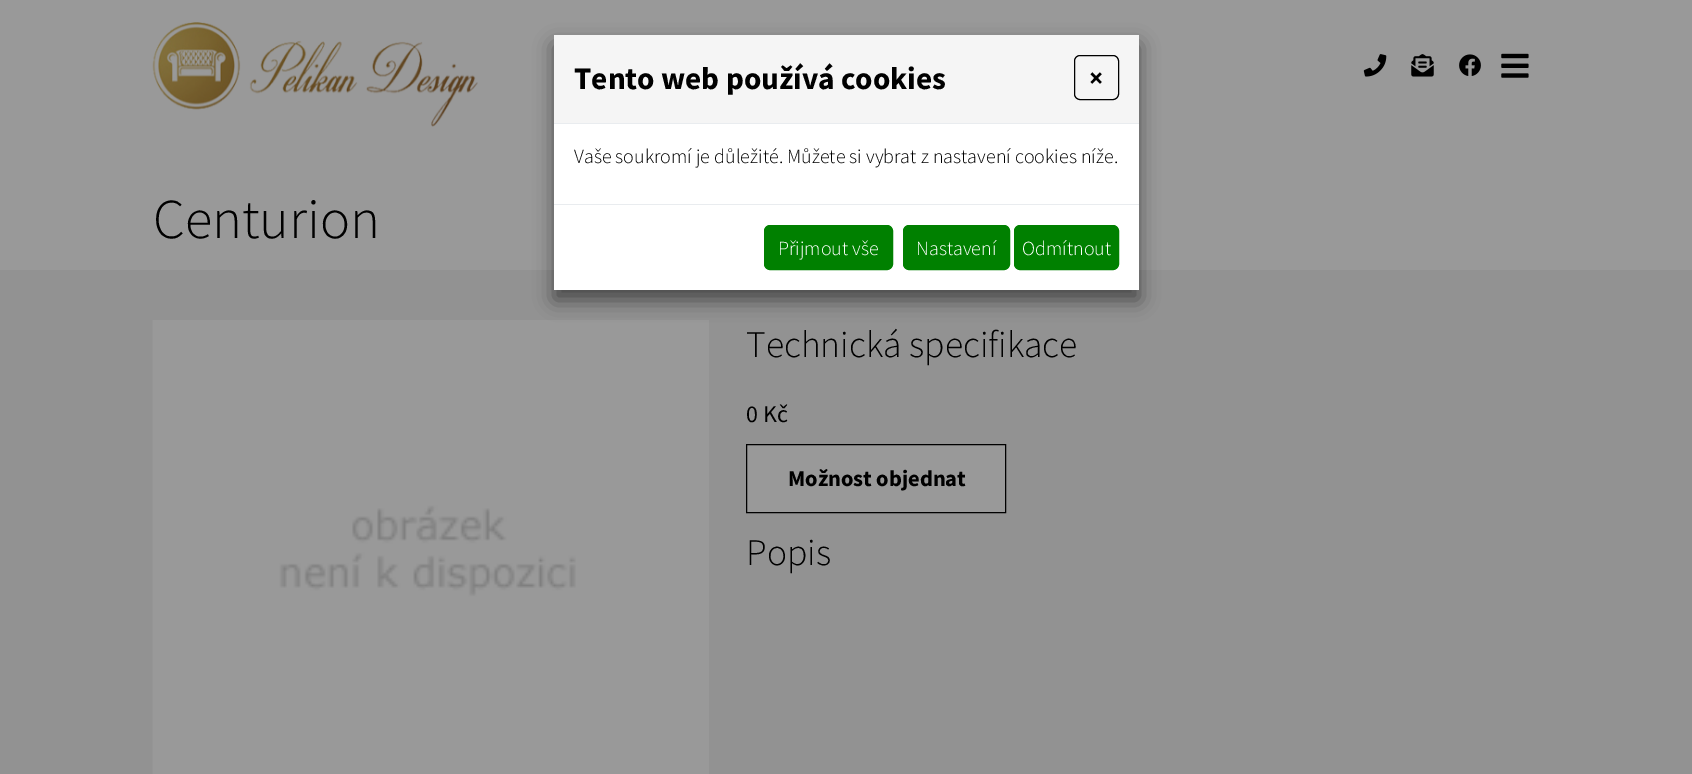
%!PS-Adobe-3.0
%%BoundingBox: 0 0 1692 774
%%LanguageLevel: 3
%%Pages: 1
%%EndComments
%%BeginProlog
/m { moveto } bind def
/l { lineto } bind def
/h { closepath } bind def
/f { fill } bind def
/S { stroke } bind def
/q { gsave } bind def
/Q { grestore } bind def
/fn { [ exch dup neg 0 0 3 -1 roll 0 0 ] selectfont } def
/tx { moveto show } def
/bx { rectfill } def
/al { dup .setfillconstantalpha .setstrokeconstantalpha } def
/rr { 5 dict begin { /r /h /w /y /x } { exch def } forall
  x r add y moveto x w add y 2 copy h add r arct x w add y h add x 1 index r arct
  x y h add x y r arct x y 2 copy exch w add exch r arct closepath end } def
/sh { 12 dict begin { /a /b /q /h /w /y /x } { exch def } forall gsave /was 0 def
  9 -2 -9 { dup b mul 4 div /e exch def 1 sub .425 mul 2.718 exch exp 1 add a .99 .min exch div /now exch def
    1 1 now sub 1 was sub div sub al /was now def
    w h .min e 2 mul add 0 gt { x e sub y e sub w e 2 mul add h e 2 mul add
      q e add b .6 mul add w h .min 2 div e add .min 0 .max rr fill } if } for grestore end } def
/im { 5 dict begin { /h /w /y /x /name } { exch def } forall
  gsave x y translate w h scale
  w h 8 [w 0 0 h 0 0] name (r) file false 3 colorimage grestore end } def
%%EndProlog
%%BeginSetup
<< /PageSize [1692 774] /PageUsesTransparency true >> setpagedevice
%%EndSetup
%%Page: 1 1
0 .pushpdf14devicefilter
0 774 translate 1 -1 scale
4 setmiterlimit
0.6 setgray
0 0 1692 774 bx
(image0.raw) 152 22 326 105 im
(image1.raw) 1363 54 24 23 im
(image2.raw) 1411 54 23 23 im
(image3.raw) 1459 54 22 22 im
(image4.raw) 1501 53 28 25 im
0.573 setgray
0 270 1692 504 bx
0.6 setgray
576 320 133 454 bx
(image5.raw) 152 320 424 454 im
0 setgray
554 45 585 255 0 10 0.5 sh
1 setgray
554 124 585 166 bx
0.961 setgray
554 35 585 88 bx
0.914 0.925 0.937 setrgbcolor
554 123 585 1 bx
/SourceSansPro-Bold 31.25 fn
0 setgray
(Tento web používá cookies) 574 89 tx
1074.5 55.5 44 44 5.5 rr S
/SourceSansPro-Bold 27 fn
(×) 1089 87 tx
/SourceSansPro-Light 20 fn
(Vaše soukromí je důležité. Můžete si vybrat z nastavení cookies níže.) 574 163 tx
0.914 0.925 0.937 setrgbcolor
554 204 585 1 bx
0 0.502 0 setrgbcolor
764.5 225.5 128 44 5.5 rr q f Q
S
1 setgray
(Přijmout vše) 778 255 tx
0 0.502 0 setrgbcolor
903.5 225.5 106 44 5.5 rr q f Q
S
1 setgray
(Nastavení) 916 255 tx
0 0.502 0 setrgbcolor
1014.5 225.5 104 44 5.5 rr q f Q
S
1 setgray
(Odmítnout) 1022 255 tx
/SourceSansPro-Light 56.25 fn
0 setgray
(Centurion) 153 238 tx
/SourceSansPro-Light 37.5 fn
(Technická specifikace) 746 357 tx
/SourceSansPro-Regular 24 fn
(0 Kč) 746 422 tx
0.6 setgray
746.5 444.5 m 1005.5 444.5 l 1005.5 512.5 l 746.5 512.5 l h q f Q
0 setgray
S
/SourceSansPro-Bold 22.5 fn
(Možnost objednat) 788 486 tx
/SourceSansPro-Light 37.5 fn
(Popis) 746 565 tx
.poppdf14devicefilter showpage
%%EOF
